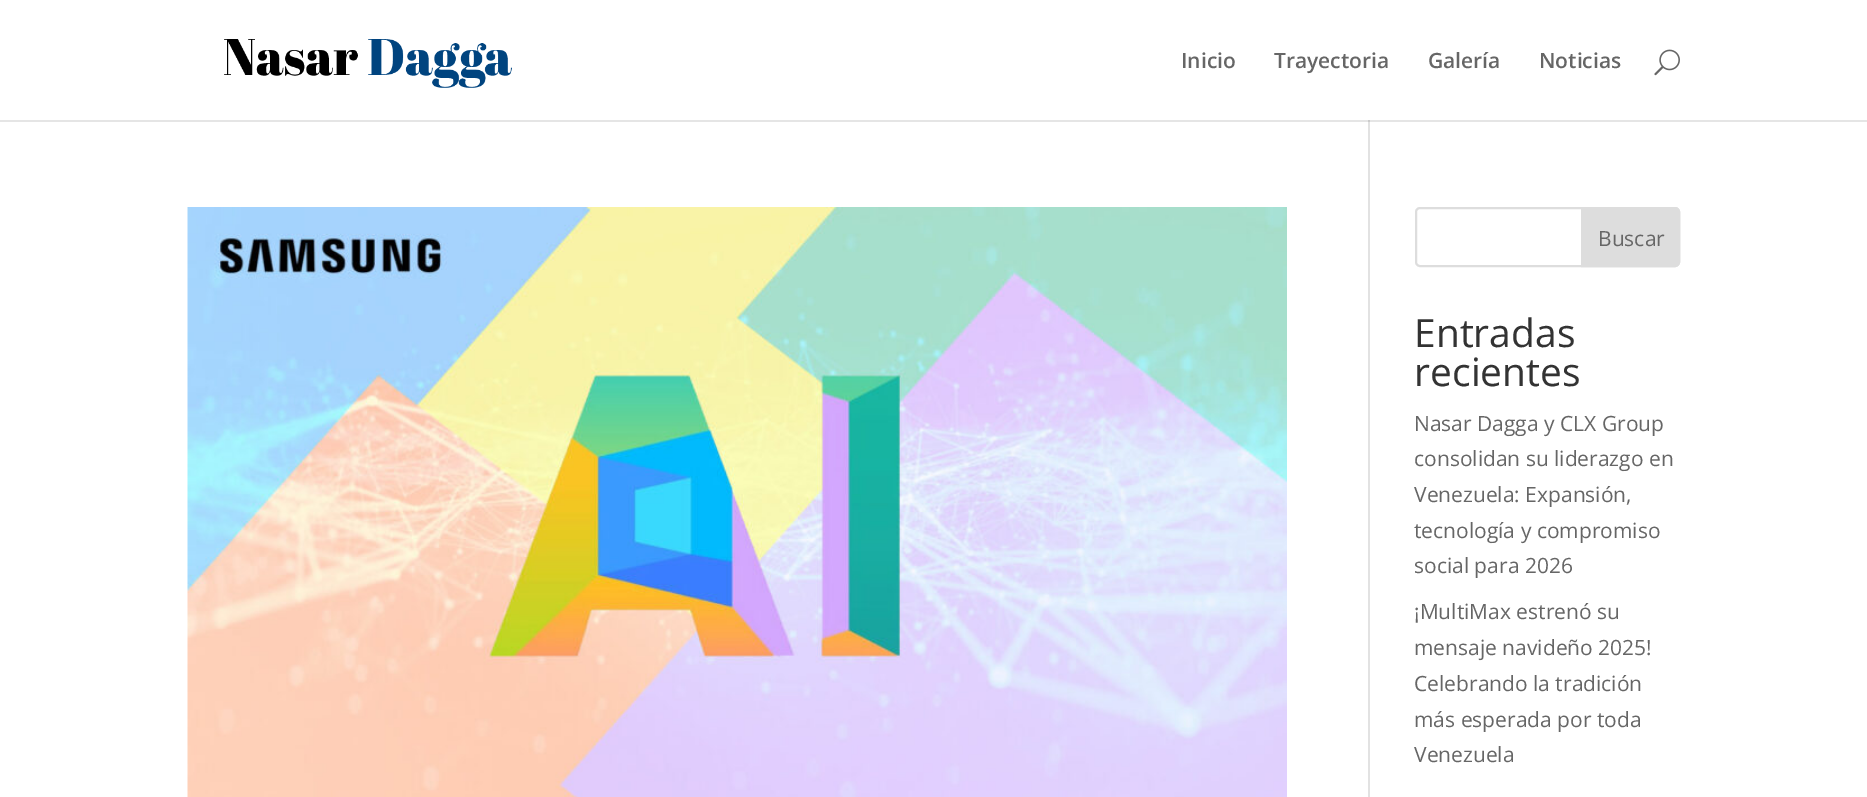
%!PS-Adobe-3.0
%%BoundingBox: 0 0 1867 797
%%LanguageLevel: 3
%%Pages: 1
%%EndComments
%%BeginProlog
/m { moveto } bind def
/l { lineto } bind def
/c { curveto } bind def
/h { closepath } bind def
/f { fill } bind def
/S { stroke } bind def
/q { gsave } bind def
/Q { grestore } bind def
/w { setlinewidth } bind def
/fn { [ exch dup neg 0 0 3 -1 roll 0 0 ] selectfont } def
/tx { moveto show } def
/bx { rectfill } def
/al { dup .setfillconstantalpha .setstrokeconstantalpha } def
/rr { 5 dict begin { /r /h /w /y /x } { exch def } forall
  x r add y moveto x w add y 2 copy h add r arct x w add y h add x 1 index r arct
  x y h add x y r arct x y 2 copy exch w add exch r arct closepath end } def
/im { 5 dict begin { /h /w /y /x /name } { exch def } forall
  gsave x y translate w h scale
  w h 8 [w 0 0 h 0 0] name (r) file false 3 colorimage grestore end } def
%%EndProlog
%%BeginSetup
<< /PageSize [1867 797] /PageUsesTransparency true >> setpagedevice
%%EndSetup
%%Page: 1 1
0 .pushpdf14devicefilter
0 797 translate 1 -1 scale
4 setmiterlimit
1 setgray
0 0 1867 797 bx
0.886 setgray
1368 120 2 677 bx
0.1 al
0 setgray
0 120 m 0 122 l 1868 122 l 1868 2 l 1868 120 l h f
1 al
(image0.raw) 224 39 288 49 im
/OpenSans-SemiBold 21 fn
0.4 setgray
(Inicio) 1181 68 tx
(Trayectoria) 1274 68 tx
(Galería) 1428 68 tx
(Noticias) 1539 68 tx
(image1.raw) 1654 49 26 27 im
(image2.raw) 187 207 1100 590 im
0.867 setgray
2 w
1416 208 263 58 4 rr S
1582 208 m 1675 208 l 1677 208 1679 210 1679 212 c 1679 262 l 1679 264 1677 266 1675 266 c 1582 266 l h q f Q
S
/OpenSans-Regular 21 fn
0.4 setgray
(Buscar) 1598 246 tx
/OpenSans-Regular 39 fn
0.2 setgray
(Entradas) 1414 347 tx
(recientes) 1414 386 tx
/OpenSans-Regular 21 fn
0.4 setgray
(Nasar Dagga y CLX Group) 1414 431 tx
(consolidan su liderazgo en) 1414 466 tx
(Venezuela: Expansión,) 1414 502 tx
(tecnología y compromiso) 1414 538 tx
(social para 2026) 1414 573 tx
(¡MultiMax estrenó su) 1414 619 tx
(mensaje navideño 2025!) 1414 655 tx
(Celebrando la tradición) 1414 691 tx
(más esperada por toda) 1414 727 tx
(Venezuela) 1414 762 tx
.poppdf14devicefilter showpage
%%EOF
